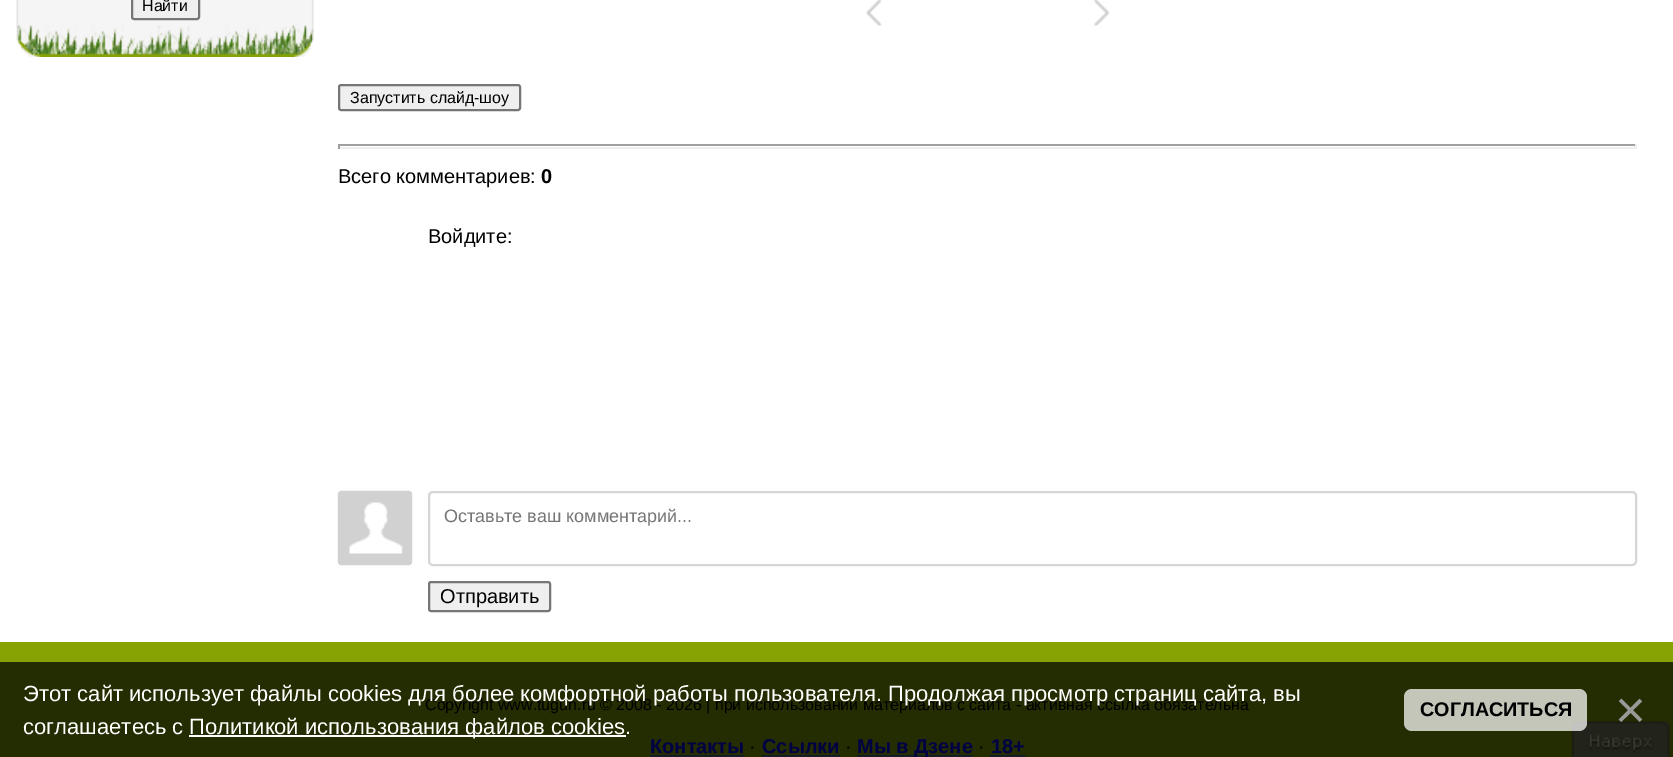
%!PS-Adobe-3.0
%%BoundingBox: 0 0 1673 757
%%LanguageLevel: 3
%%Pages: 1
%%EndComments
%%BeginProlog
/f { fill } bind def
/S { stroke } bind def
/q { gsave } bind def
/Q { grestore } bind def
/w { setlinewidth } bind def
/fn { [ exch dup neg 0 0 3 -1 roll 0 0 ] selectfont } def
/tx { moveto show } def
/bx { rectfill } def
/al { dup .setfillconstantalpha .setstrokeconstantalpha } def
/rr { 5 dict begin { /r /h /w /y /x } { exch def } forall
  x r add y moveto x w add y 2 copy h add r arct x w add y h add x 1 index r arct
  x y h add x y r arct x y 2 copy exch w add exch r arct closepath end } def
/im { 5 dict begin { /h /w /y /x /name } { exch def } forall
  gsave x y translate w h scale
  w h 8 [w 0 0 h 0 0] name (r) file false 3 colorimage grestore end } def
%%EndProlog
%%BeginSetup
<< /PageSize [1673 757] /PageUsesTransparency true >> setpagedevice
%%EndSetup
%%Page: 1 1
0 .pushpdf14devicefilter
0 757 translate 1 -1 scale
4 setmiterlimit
1 setgray
0 0 1673 757 bx
(image0.raw) 16 0 298 57 im
0.937 setgray
132 -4 67 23 2 rr q f Q
0.463 setgray
2 w
S
/LiberationSans-Regular 16 fn
0 setgray
(Найти) 142 11 tx
(image1.raw) 865 0 17 26 im
(image2.raw) 1093 0 17 26 im
0.937 setgray
339 85 181 25 2 rr q f Q
0.463 setgray
S
0 setgray
(Запустить слайд-шоу) 350 103 tx
0.624 setgray
338 144 1299 2 bx
0.933 setgray
1635 144 2 5 bx
338 147 1299 2 bx
0.624 setgray
338 144 2 5 bx
/LiberationSans-Regular 20 fn
0 setgray
(Всего комментариев:) 338 183 tx
/LiberationSans-Bold 20 fn
(0) 541 183 tx
/LiberationSans-Regular 20 fn
(Войдите:) 428 243 tx
(image3.raw) 337 490 76 76 im
0.839 setgray
429 492 1207 73 4 rr S
/LiberationSans-Regular 18 fn
0.459 setgray
(Оставьте ваш комментарий...) 444 522 tx
0.937 setgray
429 582 121 29 2 rr q f Q
0.463 setgray
S
/LiberationSans-Regular 20 fn
0 setgray
(Отправить) 440 603 tx
0.141 0.173 0.004 setrgbcolor
0 662 1673 95 bx
/LiberationSans-Regular 16 fn
0 setgray
(Copyright www.tugun.ru © 2008 - 2026 | при использовании материалов с сайта - активная ссылка обязательна) 425 710 tx
/LiberationSans-Regular 22 fn
1 setgray
(Этот сайт использует файлы cookies для более комфортной работы пользователя. Продолжая просмотр страниц сайта, вы) 23 701 tx
(соглашаетесь с) 23 734 tx
189 735 437 2 bx
(Политикой использования файлов cookies) 189 734 tx
(.) 625 734 tx
(image4.raw) 1571 721 99 36 im
0.73 al
1404 689 183 42 8 rr f
/LiberationSans-Bold 19.75 fn
1 al
0 setgray
(СОГЛАСИТЬСЯ) 1420 716 tx
/LiberationSans-Regular 53 fn
0.6 setgray
(×) 1615 728 tx
0.529 0.639 0.012 setrgbcolor
0 642 1673 20 bx
/LiberationSans-Bold 20 fn
0 0 0.271 setrgbcolor
(Контакты) 650 753 tx
0.082 0.114 0.153 setrgbcolor
650 755 94 2 bx
/LiberationSans-Regular 20 fn
0 setgray
(·) 749 753 tx
/LiberationSans-Bold 20 fn
0 0 0.271 setrgbcolor
(Ссылки) 762 753 tx
0.082 0.114 0.153 setrgbcolor
762 755 78 2 bx
/LiberationSans-Regular 20 fn
0 setgray
(·) 845 753 tx
0.082 0.114 0.153 setrgbcolor
857 755 115 2 bx
/LiberationSans-Bold 20 fn
0 0 0.271 setrgbcolor
(Мы в Дзене) 857 753 tx
/LiberationSans-Regular 20 fn
0 setgray
(·) 978 753 tx
/LiberationSans-Bold 20 fn
0 0 0.271 setrgbcolor
(18+) 991 753 tx
0.082 0.114 0.153 setrgbcolor
990 755 35 2 bx
.poppdf14devicefilter showpage
%%EOF
